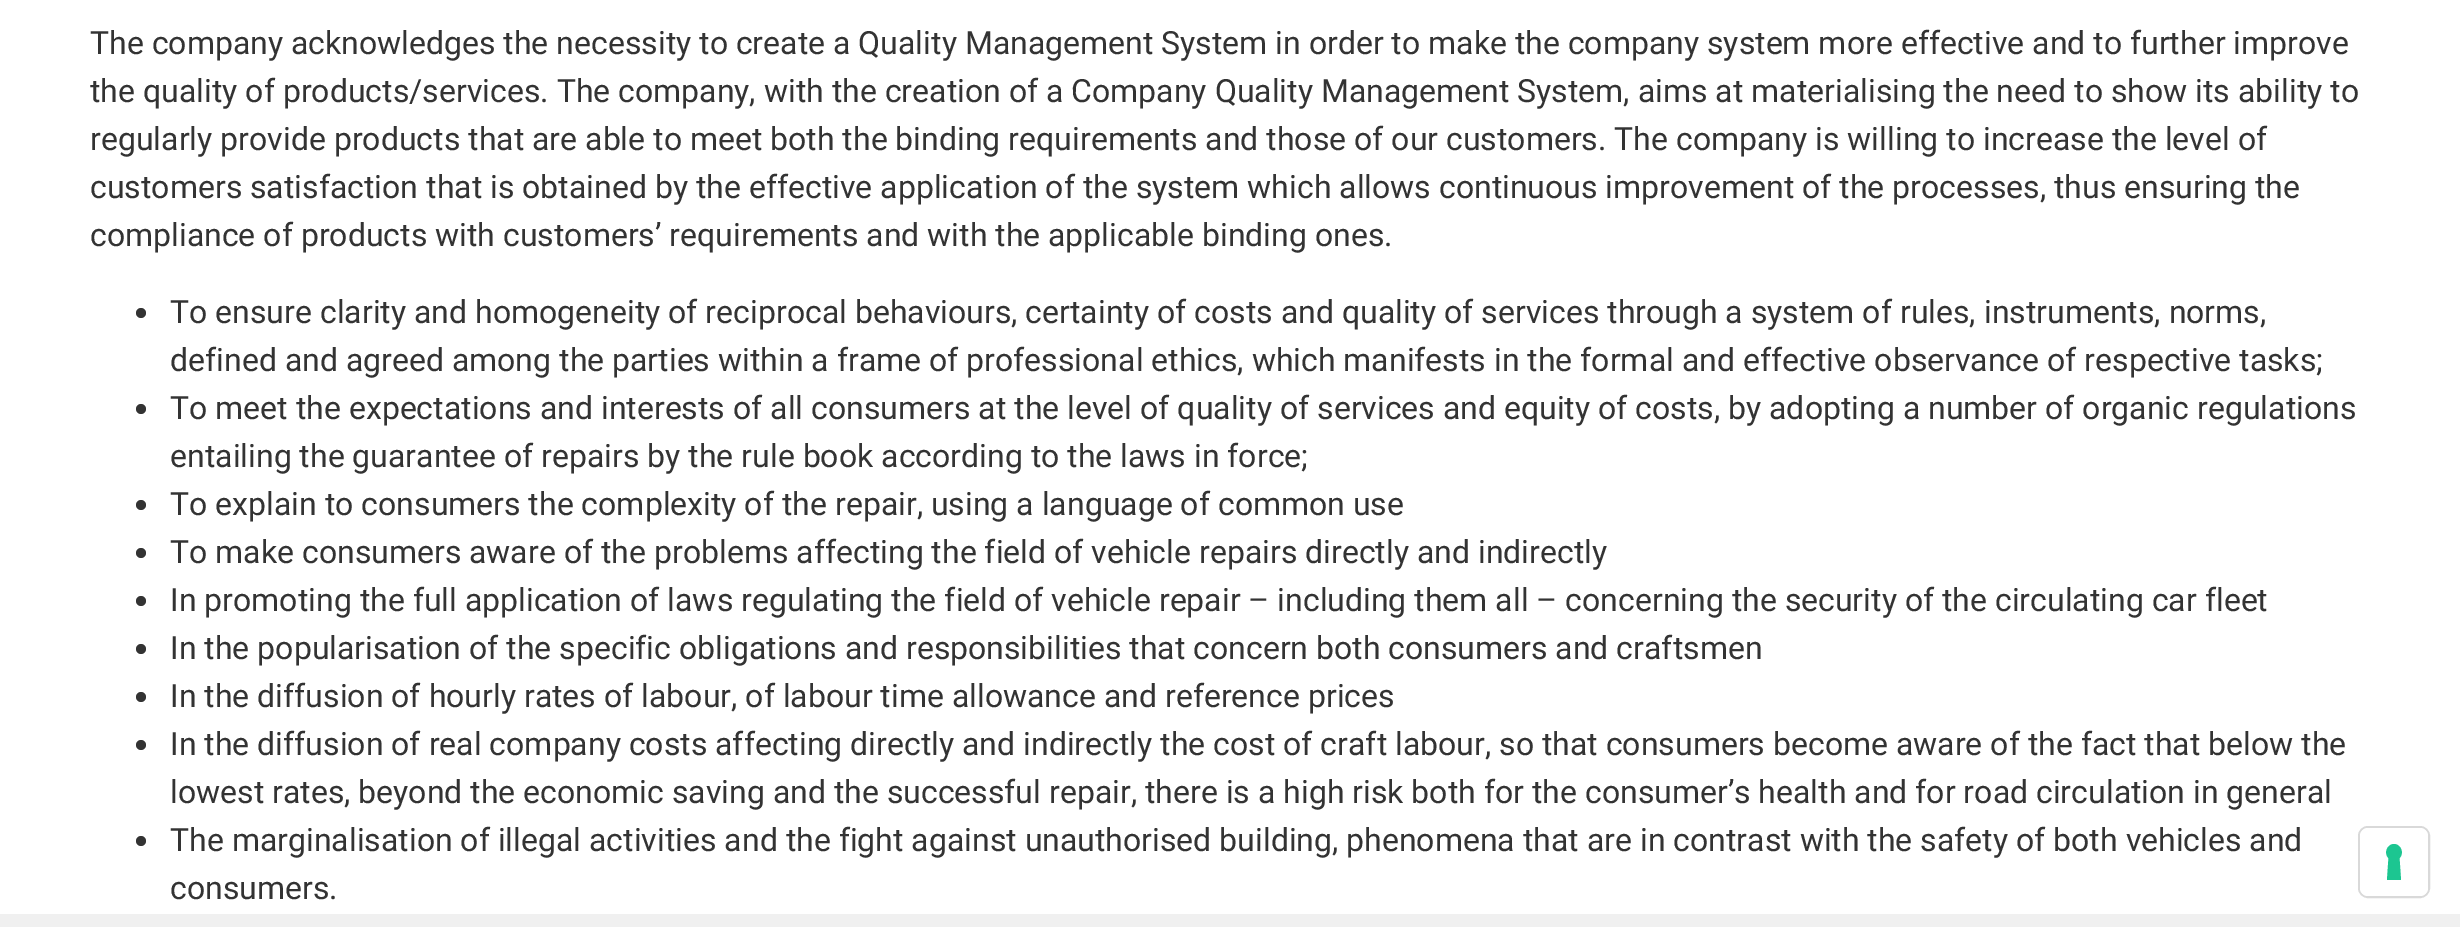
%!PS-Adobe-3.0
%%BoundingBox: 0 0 2460 927
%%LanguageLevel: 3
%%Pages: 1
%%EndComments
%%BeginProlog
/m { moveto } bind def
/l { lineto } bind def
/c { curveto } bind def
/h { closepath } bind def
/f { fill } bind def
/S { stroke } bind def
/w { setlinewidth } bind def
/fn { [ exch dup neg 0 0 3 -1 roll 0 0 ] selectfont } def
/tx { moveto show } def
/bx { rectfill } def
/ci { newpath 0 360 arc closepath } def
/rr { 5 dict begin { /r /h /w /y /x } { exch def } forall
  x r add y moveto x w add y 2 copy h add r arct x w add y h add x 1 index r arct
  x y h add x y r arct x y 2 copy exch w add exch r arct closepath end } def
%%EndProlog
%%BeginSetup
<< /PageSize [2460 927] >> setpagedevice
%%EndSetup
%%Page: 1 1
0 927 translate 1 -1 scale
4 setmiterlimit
1 setgray
0 0 2460 927 bx
/Roboto-Regular 32 fn
0.2 setgray
(The company acknowledges the necessity to create a Quality Management System in order to make the company system more effective and to further improve) 90 54 tx
(the quality of products/services. The company, with the creation of a Company Quality Management System, aims at materialising the need to show its ability to) 90 102 tx
(regularly provide products that are able to meet both the binding requirements and those of our customers. The company is willing to increase the level of) 90 150 tx
(customers satisfaction that is obtained by the effective application of the system which allows continuous improvement of the processes, thus ensuring the) 90 198 tx
(compliance of products with customers’ requirements and with the applicable binding ones.) 90 246 tx
141 313 5 ci f
(To ensure clarity and homogeneity of reciprocal behaviours, certainty of costs and quality of services through a system of rules, instruments, norms,) 170 323 tx
(defined and agreed among the parties within a frame of professional ethics, which manifests in the formal and effective observance of respective tasks;) 170 371 tx
141 409 5 ci f
(To meet the expectations and interests of all consumers at the level of quality of services and equity of costs, by adopting a number of organic regulations) 170 419 tx
(entailing the guarantee of repairs by the rule book according to the laws in force;) 170 467 tx
141 505 5 ci f
(To explain to consumers the complexity of the repair, using a language of common use) 170 515 tx
141 553 5 ci f
(To make consumers aware of the problems affecting the field of vehicle repairs directly and indirectly) 170 563 tx
141 601 5 ci f
(In promoting the full application of laws regulating the field of vehicle repair – including them all – concerning the security of the circulating car fleet) 170 611 tx
141 649 5 ci f
(In the popularisation of the specific obligations and responsibilities that concern both consumers and craftsmen) 170 659 tx
141 697 5 ci f
(In the diffusion of hourly rates of labour, of labour time allowance and reference prices) 170 707 tx
141 745 5 ci f
(In the diffusion of real company costs affecting directly and indirectly the cost of craft labour, so that consumers become aware of the fact that below the) 170 755 tx
(lowest rates, beyond the economic saving and the successful repair, there is a high risk both for the consumer’s health and for road circulation in general) 170 803 tx
141 841 5 ci f
(The marginalisation of illegal activities and the fight against unauthorised building, phenomena that are in contrast with the safety of both vehicles and) 170 851 tx
(consumers.) 170 899 tx
0.851 setgray
2 w
2359 827 70 70 9 rr S
1 setgray
2360 828 68 68 8 rr f
0.11 0.776 0.569 setrgbcolor
2394 844 m 2401 844 2404.5 853.5 2399.5 858 c 2401 880 l 2387 880 l 2388.5 858 l 2383.5 853.5 2387 844 2394 844 c h eofill
0.941 setgray
0 914 2460 13 bx
showpage
%%EOF
